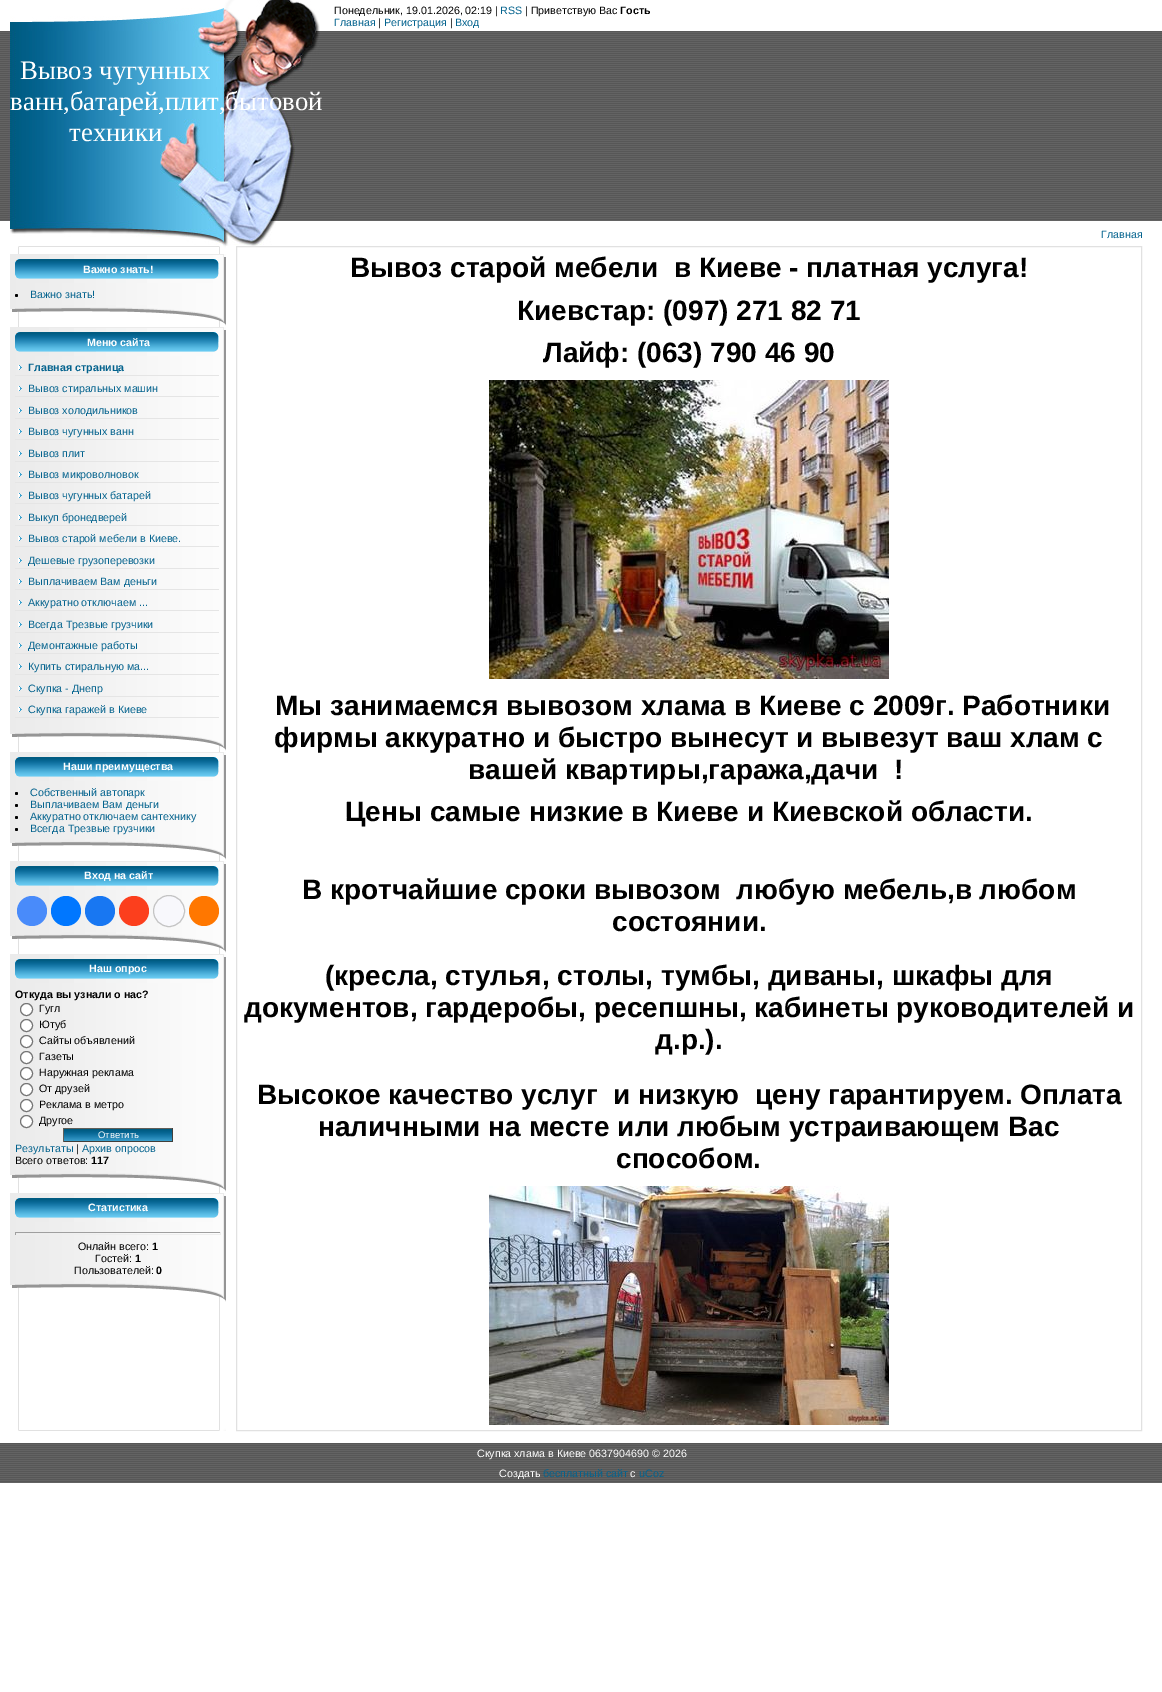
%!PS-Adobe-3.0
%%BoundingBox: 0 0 1162 1692
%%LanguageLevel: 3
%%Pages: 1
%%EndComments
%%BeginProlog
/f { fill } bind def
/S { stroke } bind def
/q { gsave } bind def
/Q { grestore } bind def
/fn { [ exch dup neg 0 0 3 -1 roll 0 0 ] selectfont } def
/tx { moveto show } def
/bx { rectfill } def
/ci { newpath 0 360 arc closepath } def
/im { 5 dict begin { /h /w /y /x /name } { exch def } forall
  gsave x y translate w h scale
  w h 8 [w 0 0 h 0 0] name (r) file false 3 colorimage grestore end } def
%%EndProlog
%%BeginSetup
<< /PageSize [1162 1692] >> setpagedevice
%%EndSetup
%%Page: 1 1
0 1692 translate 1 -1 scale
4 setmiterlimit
1 setgray
0 0 1162 1692 bx
(image0.raw) 10 0 310 31 im
/LiberationSans-Regular 10.7 fn
0 setgray
(Понедельник, 19.01.2026, 02:19 |) 334 14 tx
0.016 0.388 0.557 setrgbcolor
(RSS) 500 14 tx
0 setgray
(| Приветствую Вас) 525 14 tx
/LiberationSans-Bold 10.7 fn
(Гость) 620 14 tx
/LiberationSans-Regular 10.7 fn
0.016 0.388 0.557 setrgbcolor
(Главная) 334 26 tx
0 setgray
(|) 378 26 tx
0.016 0.388 0.557 setrgbcolor
(Регистрация) 384 26 tx
0 setgray
(|) 450 26 tx
0.016 0.388 0.557 setrgbcolor
(Вход) 455 26 tx
(image1.raw) 0 31 334 190 im
/LiberationSerif-Regular 26.75 fn
1 setgray
(Вывоз чугунных) 20 79 tx
(ванн,батарей,плит,бытовой) 10 110 tx
(техники) 69 141 tx
0.341 setgray
334 31 828 1 bx
(image2.raw) 334 32 828 189 im
(image3.raw) 10 221 266 25 im
/LiberationSans-Regular 10.7 fn
0.016 0.388 0.557 setrgbcolor
(Главная) 1101 238 tx
(image4.raw) 18 751 208 680 im
(image5.raw) 18 246 208 8 im
(image6.raw) 10 254 216 29 im
/LiberationSans-Bold 10.7 fn
1 setgray
(Важно знать!) 83 273 tx
(image7.raw) 10 283 216 22 im
0 setgray
16.5 295.5 1.5 ci f
/LiberationSans-Regular 10.7 fn
0.016 0.388 0.557 setrgbcolor
(Важно знать!) 30 298 tx
(image8.raw) 10 305 216 22 im
(image6.raw) 10 327 216 29 im
/LiberationSans-Bold 10.7 fn
1 setgray
(Меню сайта) 87 346 tx
(image9.raw) 10 356 216 374 im
(image10.raw) 18 365 4 5 im
0.898 setgray
15 375 204 1 bx
0.016 0.388 0.557 setrgbcolor
(Главная страница) 28 371 tx
(image10.raw) 18 386 4 5 im
0.898 setgray
15 396 204 1 bx
/LiberationSans-Regular 10.7 fn
0.016 0.388 0.557 setrgbcolor
(Вывоз стиральных машин) 28 392 tx
(image10.raw) 18 408 4 5 im
0.898 setgray
15 418 204 1 bx
0.016 0.388 0.557 setrgbcolor
(Вывоз холодильников) 28 414 tx
(image10.raw) 18 429 4 5 im
0.898 setgray
15 439 204 1 bx
0.016 0.388 0.557 setrgbcolor
(Вывоз чугунных ванн) 28 435 tx
(image10.raw) 18 451 4 5 im
0.898 setgray
15 461 204 1 bx
0.016 0.388 0.557 setrgbcolor
(Вывоз плит) 28 457 tx
(image10.raw) 18 472 4 5 im
0.898 setgray
15 482 204 1 bx
0.016 0.388 0.557 setrgbcolor
(Вывоз микроволновок) 28 478 tx
(image10.raw) 18 493 4 5 im
0.898 setgray
15 503 204 1 bx
0.016 0.388 0.557 setrgbcolor
(Вывоз чугунных батарей) 28 499 tx
(image10.raw) 18 515 4 5 im
0.898 setgray
15 525 204 1 bx
0.016 0.388 0.557 setrgbcolor
(Выкуп бронедверей) 28 521 tx
(image10.raw) 18 536 4 5 im
0.898 setgray
15 546 204 1 bx
0.016 0.388 0.557 setrgbcolor
(Вывоз старой мебели в Киеве.) 28 542 tx
(image10.raw) 18 558 4 5 im
0.898 setgray
15 568 204 1 bx
0.016 0.388 0.557 setrgbcolor
(Дешевые грузоперевозки) 28 564 tx
(image10.raw) 18 579 4 5 im
0.898 setgray
15 589 204 1 bx
0.016 0.388 0.557 setrgbcolor
(Выплачиваем Вам деньги) 28 585 tx
(image10.raw) 18 600 4 5 im
0.898 setgray
15 610 204 1 bx
0.016 0.388 0.557 setrgbcolor
(Аккуратно отключаем ...) 28 606 tx
(image10.raw) 18 622 4 5 im
0.898 setgray
15 632 204 1 bx
0.016 0.388 0.557 setrgbcolor
(Всегда Трезвые грузчики) 28 628 tx
(image10.raw) 18 643 4 5 im
0.898 setgray
15 653 204 1 bx
0.016 0.388 0.557 setrgbcolor
(Демонтажные работы) 28 649 tx
(image10.raw) 18 664 4 5 im
0.898 setgray
15 674 204 1 bx
0.016 0.388 0.557 setrgbcolor
(Купить стиральную ма...) 28 670 tx
(image10.raw) 18 686 4 5 im
0.898 setgray
15 696 204 1 bx
0.016 0.388 0.557 setrgbcolor
(Скупка - Днепр) 28 692 tx
(image10.raw) 18 707 4 5 im
0.898 setgray
15 717 204 1 bx
0.016 0.388 0.557 setrgbcolor
(Скупка гаражей в Киеве) 28 713 tx
(image11.raw) 10 730 216 21 im
(image6.raw) 10 752 216 29 im
/LiberationSans-Bold 10.7 fn
1 setgray
(Наши преимущества) 63 770 tx
(image12.raw) 10 781 216 58 im
0 setgray
16.5 793.5 1.5 ci f
/LiberationSans-Regular 10.7 fn
0.016 0.388 0.557 setrgbcolor
(Собственный автопарк) 30 796 tx
0 setgray
16.5 805.5 1.5 ci f
0.016 0.388 0.557 setrgbcolor
(Выплачиваем Вам деньги) 30 808 tx
0 setgray
16.5 817.5 1.5 ci f
0.016 0.388 0.557 setrgbcolor
(Аккуратно отключаем сантехнику) 30 820 tx
0 setgray
16.5 829.5 1.5 ci f
0.016 0.388 0.557 setrgbcolor
(Всегда Трезвые грузчики) 30 832 tx
(image11.raw) 10 839 216 21 im
(image6.raw) 10 861 216 29 im
/LiberationSans-Bold 10.7 fn
1 setgray
(Вход на сайт) 84 879 tx
(image13.raw) 10 890 216 42 im
0.286 0.545 0.98 setrgbcolor
32 911 15 ci f
0 0.467 1 setrgbcolor
66 911 15 ci f
0.094 0.467 0.949 setrgbcolor
100 911 15 ci f
0.988 0.247 0.114 setrgbcolor
134 911 15 ci f
0.973 0.973 0.988 setrgbcolor
169 911 15.5 ci q f Q
0.769 setgray
S
1 0.467 0 setrgbcolor
204 911 15 ci f
(image11.raw) 10 932 216 21 im
(image6.raw) 10 954 216 29 im
1 setgray
(Наш опрос) 89 972 tx
(image14.raw) 10 983 216 188 im
0 setgray
(Откуда вы узнали о нас?) 15 998 tx
1 setgray
26.5 1009.5 6 ci q f Q
0.463 setgray
S
/LiberationSans-Regular 10.7 fn
0 setgray
(Гугл) 39 1012 tx
1 setgray
26.5 1025.5 6 ci q f Q
0.463 setgray
S
0 setgray
(Ютуб) 39 1028 tx
1 setgray
26.5 1041.5 6 ci q f Q
0.463 setgray
S
0 setgray
(Сайты объявлений) 39 1044 tx
1 setgray
26.5 1057.5 6 ci q f Q
0.463 setgray
S
0 setgray
(Газеты) 39 1060 tx
1 setgray
26.5 1073.5 6 ci q f Q
0.463 setgray
S
0 setgray
(Наружная реклама) 39 1076 tx
1 setgray
26.5 1089.5 6 ci q f Q
0.463 setgray
S
0 setgray
(От друзей) 39 1092 tx
1 setgray
26.5 1105.5 6 ci q f Q
0.463 setgray
S
0 setgray
(Реклама в метро) 39 1108 tx
1 setgray
26.5 1121.5 6 ci q f Q
0.463 setgray
S
0 setgray
(Другое) 39 1124 tx
(image15.raw) 64 1129 108 12 im
0.38 0.369 0.345 setrgbcolor
63 1128 110 1 bx
0.255 0.247 0.231 setrgbcolor
172 1128 1 14 bx
63 1141 110 1 bx
0.38 0.369 0.345 setrgbcolor
63 1128 1 14 bx
/LiberationSans-Regular 9.5 fn
1 setgray
(Ответить) 98 1138 tx
/LiberationSans-Regular 10.7 fn
0.016 0.388 0.557 setrgbcolor
(Результаты) 15 1152 tx
0 setgray
(|) 76 1152 tx
0.016 0.388 0.557 setrgbcolor
(Архив опросов) 82 1152 tx
0 setgray
(Всего ответов:) 15 1164 tx
/LiberationSans-Bold 10.7 fn
(117) 91 1164 tx
(image11.raw) 10 1171 216 21 im
(image6.raw) 10 1193 216 29 im
1 setgray
(Статистика) 88 1211 tx
(image16.raw) 10 1222 216 59 im
0.624 setgray
15 1232 206 1 bx
0.933 setgray
220 1232 1 3 bx
15 1234 206 1 bx
0.624 setgray
15 1232 1 3 bx
/LiberationSans-Regular 10.7 fn
0 setgray
(Онлайн всего:) 78 1250 tx
/LiberationSans-Bold 10.7 fn
(1) 152 1250 tx
/LiberationSans-Regular 10.7 fn
(Гостей:) 95 1262 tx
/LiberationSans-Bold 10.7 fn
(1) 135 1262 tx
/LiberationSans-Regular 10.7 fn
(Пользователей:) 74 1274 tx
/LiberationSans-Bold 10.7 fn
(0) 156 1274 tx
(image11.raw) 10 1281 216 21 im
0.882 setgray
236.5 246.5 905 1184 rectstroke
/LiberationSans-Bold 28 fn
0 setgray
(Вывоз старой мебели  в Киеве - платная услуга!) 350 277 tx
(Киевстар: \(097\) 271 82 71) 517 320 tx
(Лайф: \(063\) 790 46 90) 543 362 tx
(image17.raw) 489 380 400 299 im
(Мы занимаемся вывозом хлама в Киеве с 2009г. Работники) 275 715 tx
(фирмы аккуратно и быстро вынесут и вывезут ваш хлам с) 274 747 tx
(вашей квартиры,гаража,дачи  !) 468 779 tx
(Цены самые низкие в Киеве и Киевской области.) 345 821 tx
(В кротчайшие сроки вывозом  любую мебель,в любом) 302 899 tx
(состоянии.) 612 931 tx
(\(кресла, стулья, столы, тумбы, диваны, шкафы для) 325 985 tx
(документов, гардеробы, ресепшны, кабинеты руководителей и) 244 1017 tx
(д.р.\).) 655 1049 tx
(Высокое качество услуг  и низкую  цену гарантируем. Оплата) 257 1104 tx
(наличными на месте или любым устраивающем Вас) 318 1136 tx
(способом.) 616 1168 tx
(image18.raw) 489 1186 400 239 im
0.341 setgray
0 1443 1162 1 bx
(image19.raw) 0 1444 1162 39 im
/LiberationSans-Regular 10.7 fn
1 setgray
(Скупка хлама в Киеве 0637904690 © 2026) 477 1457 tx
(Создать) 499 1477 tx
0.016 0.388 0.557 setrgbcolor
(бесплатный сайт) 543 1477 tx
1 setgray
(с) 630 1477 tx
0.016 0.388 0.557 setrgbcolor
(uCoz) 639 1477 tx
showpage
%%EOF
